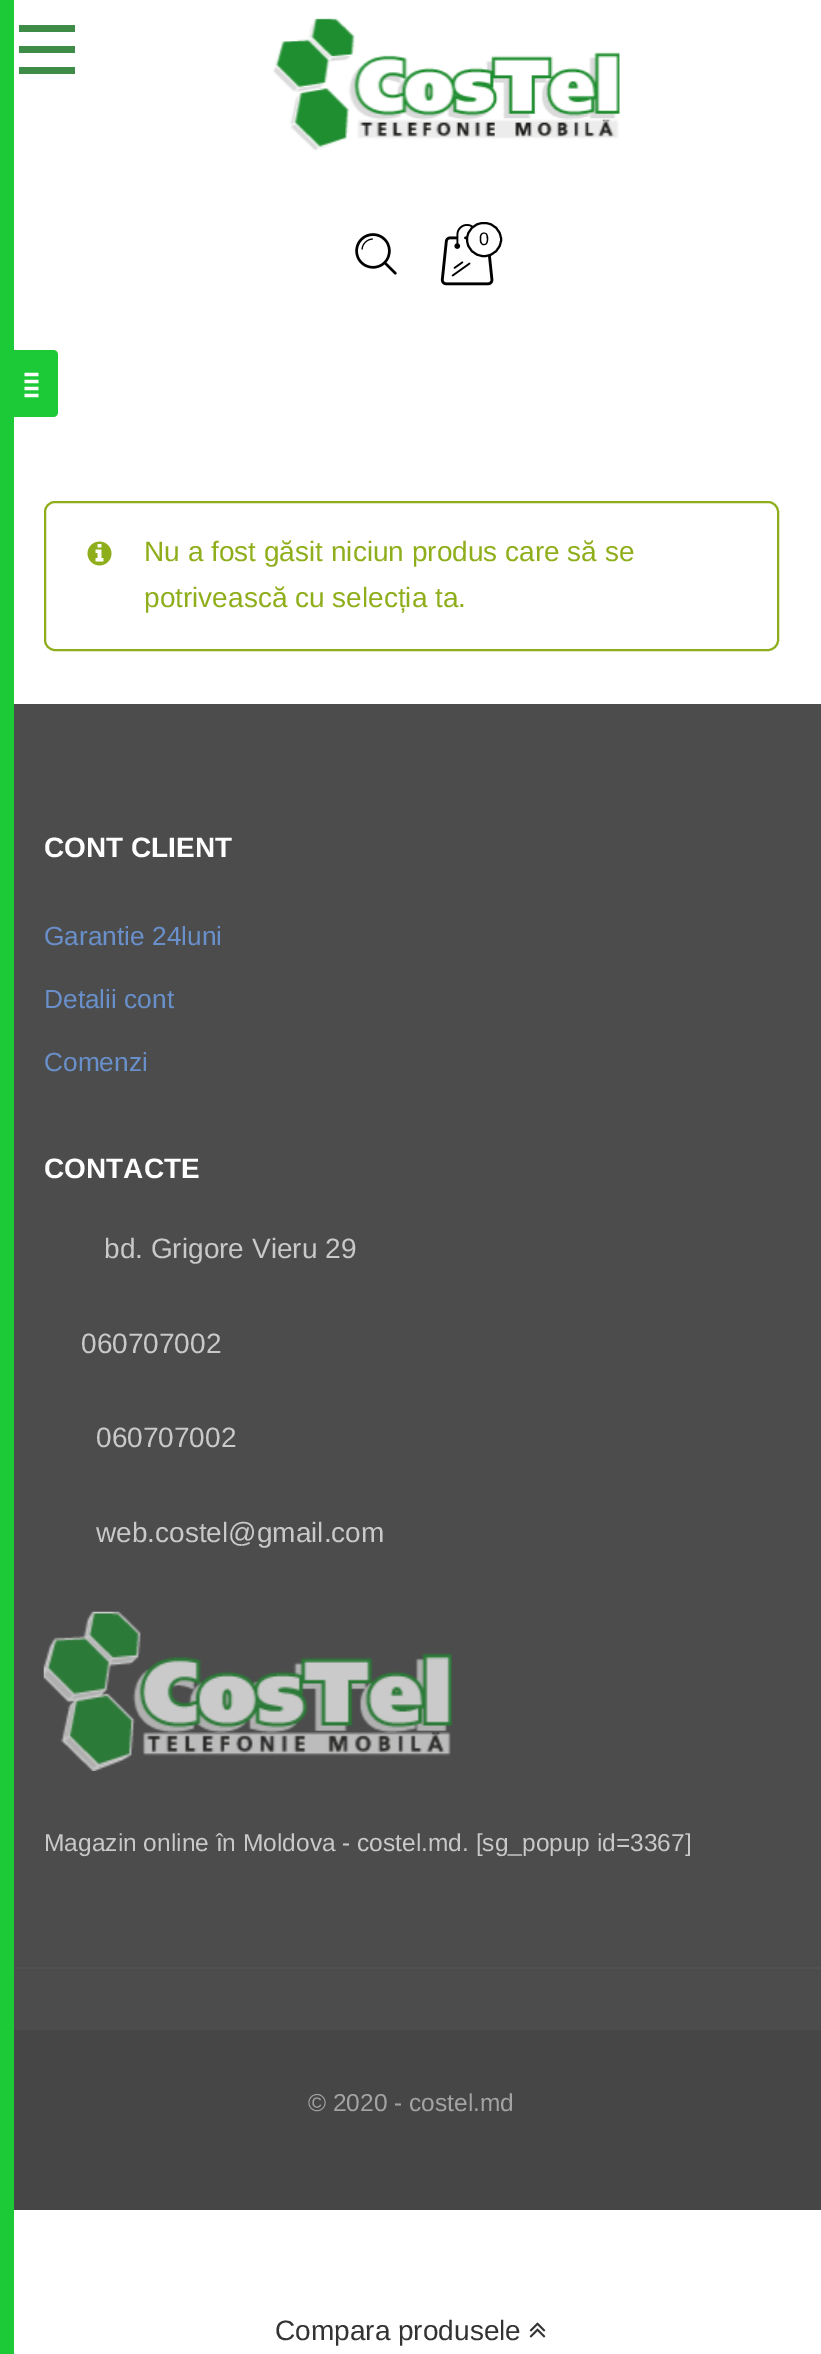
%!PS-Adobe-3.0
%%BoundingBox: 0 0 821 2354
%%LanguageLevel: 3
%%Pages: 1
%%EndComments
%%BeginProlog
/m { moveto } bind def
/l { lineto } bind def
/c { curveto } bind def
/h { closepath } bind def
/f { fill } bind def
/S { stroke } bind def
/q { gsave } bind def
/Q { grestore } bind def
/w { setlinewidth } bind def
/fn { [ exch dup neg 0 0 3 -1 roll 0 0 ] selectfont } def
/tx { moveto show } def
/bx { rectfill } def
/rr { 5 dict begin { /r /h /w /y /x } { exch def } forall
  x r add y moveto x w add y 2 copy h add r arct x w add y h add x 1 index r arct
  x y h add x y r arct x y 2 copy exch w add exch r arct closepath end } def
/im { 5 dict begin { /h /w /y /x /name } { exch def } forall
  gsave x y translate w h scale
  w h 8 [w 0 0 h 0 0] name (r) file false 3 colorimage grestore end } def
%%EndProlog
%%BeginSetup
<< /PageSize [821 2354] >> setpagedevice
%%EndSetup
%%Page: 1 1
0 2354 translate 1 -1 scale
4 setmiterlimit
1 setgray
0 0 821 2354 bx
0.247 0.549 0.286 setrgbcolor
19 46 56 7 bx
19 25 56 7 bx
19 67 56 7 bx
(image0.raw) 273 18 347 133 im
(image1.raw) 355 233 42 42 im
(image2.raw) 440 224 54 62 im
1 setgray
467 223 34 33 16.5 rr q f Q
0 setgray
2 w
S
/LiberationSans-Regular 18 fn
(0) 479 245 tx
0.11 0.788 0.212 setrgbcolor
0 0 14 2354 bx
0 350 m 53 350 l 56 350 58 352 58 355 c 58 412 l 58 415 56 417 53 417 c 0 417 l h f
(image3.raw) 24 372 15 26 im
0.561 0.682 0.106 setrgbcolor
45 502 733 148 10 rr S
(image4.raw) 87 541 25 25 im
/LiberationSans-Regular 28 fn
(Nu a fost găsit niciun produs care să se) 144 561 tx
(potrivească cu selecția ta.) 144 607 tx
0.298 setgray
14 704 807 1326 bx
/LiberationSans-Bold 28 fn
1 setgray
(CONT CLIENT) 44 857 tx
/LiberationSans-Regular 26.25 fn
0.412 0.565 0.796 setrgbcolor
(Garantie 24luni) 44 945 tx
(Detalii cont) 44 1008 tx
(Comenzi) 44 1071 tx
/LiberationSans-Bold 28 fn
1 setgray
(CONTACTE) 44 1178 tx
/LiberationSans-Regular 28 fn
0.788 setgray
(bd. Grigore Vieru 29) 104 1258 tx
(060707002) 81 1353 tx
(060707002) 96 1447 tx
(web.costel@gmail.com) 96 1542 tx
(image5.raw) 43 1611 409 160 im
/LiberationSans-Regular 24.5 fn
(Magazin online în Moldova - costel.md. [sg_popup id=3367]) 44 1851 tx
0.318 setgray
14 1967 807 2 bx
0.275 setgray
14 2030 807 180 bx
0.639 setgray
(© 2020 - costel.md) 308 2111 tx
/LiberationSans-Regular 28 fn
0.2 setgray
(Compara produsele) 275 2340 tx
(image6.raw) 529 2322 17 16 im
showpage
%%EOF
